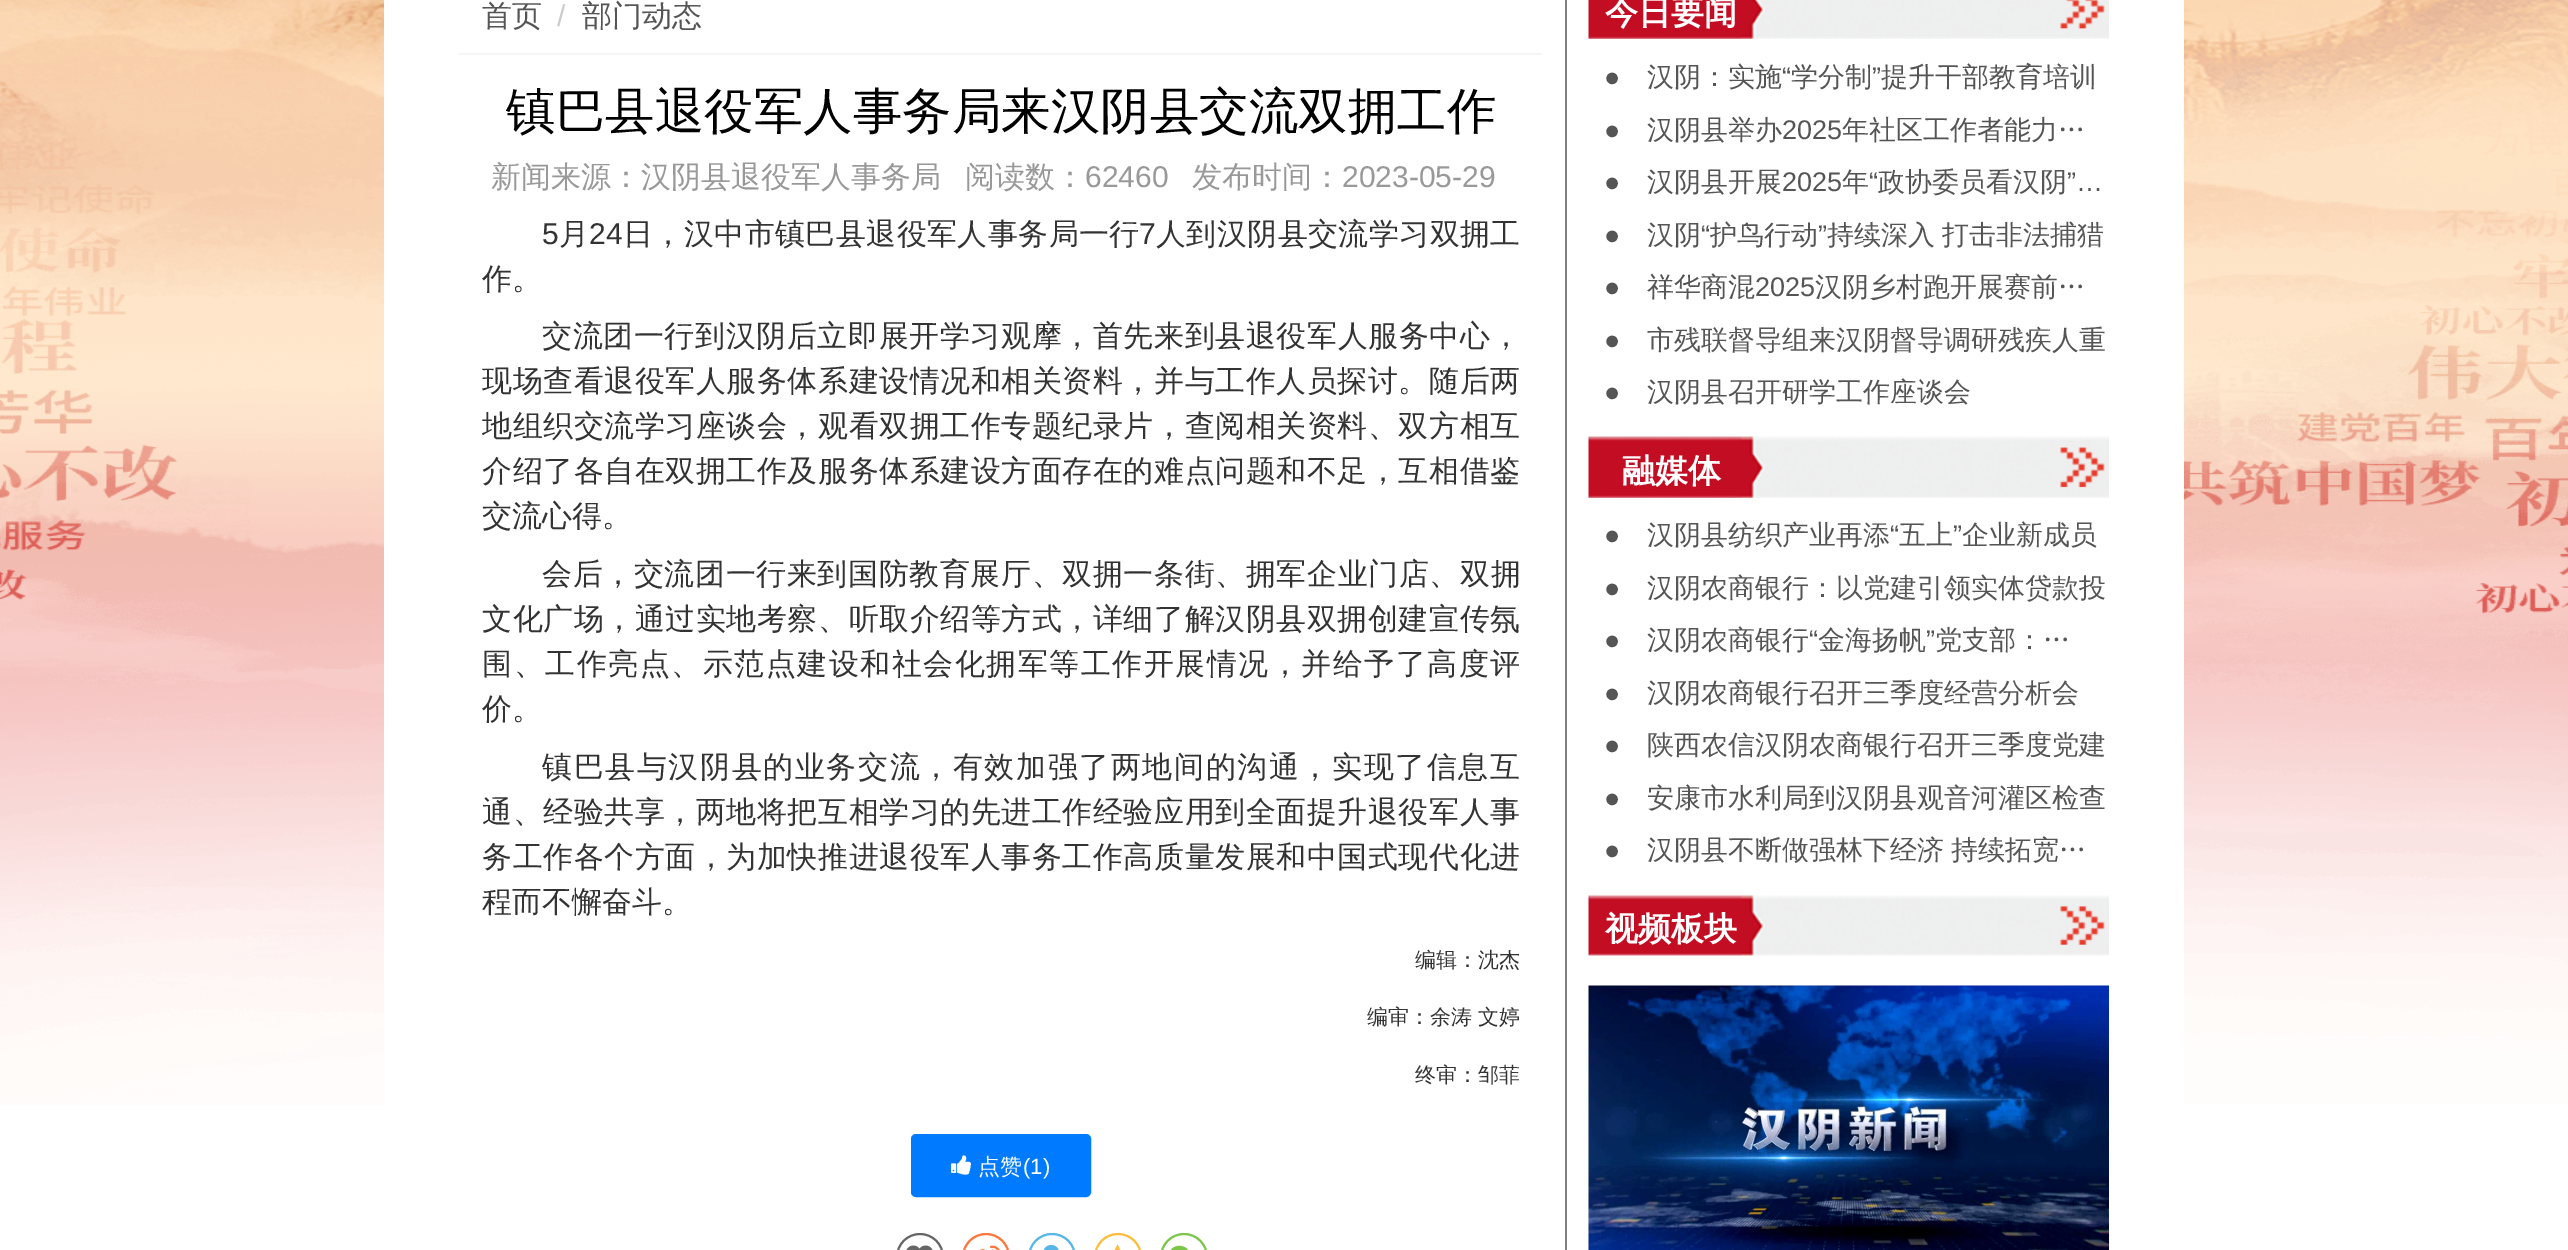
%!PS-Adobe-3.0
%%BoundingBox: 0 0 2568 1250
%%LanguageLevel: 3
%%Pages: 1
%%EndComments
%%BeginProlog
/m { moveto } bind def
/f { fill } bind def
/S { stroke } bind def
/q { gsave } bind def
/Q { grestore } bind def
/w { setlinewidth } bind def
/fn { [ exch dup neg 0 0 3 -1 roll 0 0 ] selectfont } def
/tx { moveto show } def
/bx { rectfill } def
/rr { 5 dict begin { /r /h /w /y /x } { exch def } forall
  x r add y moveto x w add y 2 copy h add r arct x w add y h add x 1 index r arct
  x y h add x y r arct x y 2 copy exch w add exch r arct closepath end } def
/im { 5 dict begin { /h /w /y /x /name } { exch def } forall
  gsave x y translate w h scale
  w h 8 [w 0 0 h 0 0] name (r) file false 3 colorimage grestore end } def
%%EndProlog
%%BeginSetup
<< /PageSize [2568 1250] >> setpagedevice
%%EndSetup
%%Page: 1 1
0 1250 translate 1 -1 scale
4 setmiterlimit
1 setgray
0 0 2568 1250 bx
(image0.raw) 0 0 2568 1105 im
384 0 1800 1105 bx
0.502 setgray
1565 0 2 1250 bx
0.961 setgray
459 53 1083 2 bx
/WenQuanYiZenHei-Medium 30 fn
0.333 setgray
(首页) 482 26 tx
/LiberationSans-Regular 30 fn
0.8 setgray
(/) 557 26 tx
/WenQuanYiZenHei-Medium 30 fn
0.333 setgray
(部门动态) 582 26 tx
/WenQuanYiZenHei-Medium 49.5 fn
0 setgray
(镇巴县退役军人事务局来汉阴县交流双拥工作) 506 128 tx
/WenQuanYiZenHei-Medium 30 fn
0.6 setgray
(新闻来源：汉阴县退役军人事务局) 491 187 tx
(阅读数：) 965 187 tx
/LiberationSans-Regular 30 fn
(62460) 1085 187 tx
/WenQuanYiZenHei-Medium 30 fn
(发布时间：) 1192 187 tx
/LiberationSans-Regular 30 fn
(2023-05-29) 1342 187 tx
0.2 setgray
542 244 m 0.4 0 (5) ashow
/WenQuanYiZenHei-Medium 30 fn
559 244 m 0.4 0 (月) ashow
/LiberationSans-Regular 30 fn
589 244 m 0.4 0 (24) ashow
/WenQuanYiZenHei-Medium 30 fn
623 244 m 0.4 0 (日，汉中市镇巴县退役军人事务局一行) ashow
/LiberationSans-Regular 30 fn
1139 244 m 0.4 0 (7) ashow
/WenQuanYiZenHei-Medium 30 fn
1156 244 m 0.4 0 (人到汉阴县交流学习双拥工) ashow
(作。) 482 289 tx
542 346 m 0.6 0 (交流团一行到汉阴后立即展开学习观摩，首先来到县退役军人服务中心，) ashow
482 391 m 0.55 0 (现场查看退役军人服务体系建设情况和相关资料，并与工作人员探讨。随后两) ashow
482 436 m 0.55 0 (地组织交流学习座谈会，观看双拥工作专题纪录片，查阅相关资料、双方相互) ashow
482 481 m 0.55 0 (介绍了各自在双拥工作及服务体系建设方面存在的难点问题和不足，互相借鉴) ashow
(交流心得。) 482 526 tx
542 584 m 0.6 0 (会后，交流团一行来到国防教育展厅、双拥一条街、拥军企业门店、双拥) ashow
482 629 m 0.55 0 (文化广场，通过实地考察、听取介绍等方式，详细了解汉阴县双拥创建宣传氛) ashow
482 674 m 1.5 0 (围、工作亮点、示范点建设和社会化拥军等工作开展情况，并给予了高度评) ashow
(价。) 482 719 tx
542 777 m 1.6 0 (镇巴县与汉阴县的业务交流，有效加强了两地间的沟通，实现了信息互) ashow
482 822 m 0.55 0 (通、经验共享，两地将把互相学习的先进工作经验应用到全面提升退役军人事) ashow
482 867 m 0.55 0 (务工作各个方面，为加快推进退役军人事务工作高质量发展和中国式现代化进) ashow
(程而不懈奋斗。) 482 912 tx
/WenQuanYiZenHei-Medium 21 fn
(编辑：沈杰) 1415 967 tx
(编审：余涛 文婷) 1367 1024 tx
(终审：邹菲) 1415 1082 tx
0 0.482 1 setrgbcolor
912 1135 178 61 4 rr q f Q
2 w
S
(image1.raw) 951 1155 21 20 im
/WenQuanYiZenHei-Medium 22 fn
1 setgray
(点赞) 978 1174 tx
/LiberationSans-Regular 22 fn
(\(1\)) 1023 1174 tx
0.4 setgray
897 1234 46 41 23 rr S
(image2.raw) 906 1245 27 5 im
1 0.463 0.231 setrgbcolor
963 1234 46 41 23 rr S
(image3.raw) 980 1245 20 5 im
0.337 0.714 0.906 setrgbcolor
1029 1234 46 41 23 rr S
(image4.raw) 1043 1244 16 6 im
0.992 0.745 0.239 setrgbcolor
1095 1234 46 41 23 rr S
(image5.raw) 1114 1244 7 6 im
0.482 0.773 0.286 setrgbcolor
1161 1234 46 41 23 rr S
(image6.raw) 1170 1245 19 5 im
(image7.raw) 1588 0 521 39 im
/WenQuanYiZenHei-Bold 33 fn
1 setgray
(今日要闻) 1605 24 tx
/WenQuanYiZenHei-Medium 27 fn
0.333 setgray
(汉阴：实施) 1647 86 tx
/LiberationSans-Regular 27 fn
(“) 1782 86 tx
/WenQuanYiZenHei-Medium 27 fn
(学分制) 1791 86 tx
/LiberationSans-Regular 27 fn
(”) 1872 86 tx
/WenQuanYiZenHei-Medium 27 fn
(提升干部教育培训) 1881 86 tx
/LiberationSans-Regular 27 fn
(●) 1604 86 tx
(●) 1604 139 tx
/WenQuanYiZenHei-Medium 27 fn
(汉阴县举办) 1647 139 tx
/LiberationSans-Regular 27 fn
(2025) 1782 139 tx
/WenQuanYiZenHei-Medium 27 fn
(年社区工作者能力…) 1842 139 tx
/LiberationSans-Regular 27 fn
(●) 1604 191 tx
/WenQuanYiZenHei-Medium 27 fn
(汉阴县开展) 1647 191 tx
/LiberationSans-Regular 27 fn
(2025) 1782 191 tx
/WenQuanYiZenHei-Medium 27 fn
(年) 1842 191 tx
/LiberationSans-Regular 27 fn
(“) 1869 191 tx
/WenQuanYiZenHei-Medium 27 fn
(政协委员看汉阴) 1878 191 tx
/LiberationSans-Regular 27 fn
(”…) 2067 191 tx
/WenQuanYiZenHei-Medium 27 fn
(汉阴) 1647 244 tx
/LiberationSans-Regular 27 fn
(“) 1701 244 tx
/WenQuanYiZenHei-Medium 27 fn
(护鸟行动) 1710 244 tx
/LiberationSans-Regular 27 fn
(”) 1818 244 tx
/WenQuanYiZenHei-Medium 27 fn
1827 244 m -1 0 32 (持续深入 打击非法捕猎) widthshow
/LiberationSans-Regular 27 fn
(●) 1604 244 tx
(●) 1604 296 tx
/WenQuanYiZenHei-Medium 27 fn
(祥华商混) 1647 296 tx
/LiberationSans-Regular 27 fn
(2025) 1755 296 tx
/WenQuanYiZenHei-Medium 27 fn
(汉阴乡村跑开展赛前…) 1815 296 tx
/LiberationSans-Regular 27 fn
(●) 1604 349 tx
/WenQuanYiZenHei-Medium 27 fn
(市残联督导组来汉阴督导调研残疾人重) 1647 349 tx
/LiberationSans-Regular 27 fn
(●) 1604 401 tx
/WenQuanYiZenHei-Medium 27 fn
(汉阴县召开研学工作座谈会) 1647 401 tx
(image8.raw) 1588 436 521 62 im
/WenQuanYiZenHei-Bold 33 fn
1 setgray
(融媒体) 1622 482 tx
/WenQuanYiZenHei-Medium 27 fn
0.333 setgray
(汉阴县纺织产业再添) 1647 544 tx
/LiberationSans-Regular 27 fn
(“) 1890 544 tx
/WenQuanYiZenHei-Medium 27 fn
(五上) 1899 544 tx
/LiberationSans-Regular 27 fn
(”) 1953 544 tx
/WenQuanYiZenHei-Medium 27 fn
(企业新成员) 1962 544 tx
/LiberationSans-Regular 27 fn
(●) 1604 544 tx
(●) 1604 597 tx
/WenQuanYiZenHei-Medium 27 fn
(汉阴农商银行：以党建引领实体贷款投) 1647 597 tx
(汉阴农商银行) 1647 649 tx
/LiberationSans-Regular 27 fn
(“) 1809 649 tx
/WenQuanYiZenHei-Medium 27 fn
(金海扬帆) 1818 649 tx
/LiberationSans-Regular 27 fn
(”) 1926 649 tx
/WenQuanYiZenHei-Medium 27 fn
(党支部：…) 1935 649 tx
/LiberationSans-Regular 27 fn
(●) 1604 649 tx
(●) 1604 702 tx
/WenQuanYiZenHei-Medium 27 fn
(汉阴农商银行召开三季度经营分析会) 1647 702 tx
/LiberationSans-Regular 27 fn
(●) 1604 754 tx
/WenQuanYiZenHei-Medium 27 fn
(陕西农信汉阴农商银行召开三季度党建) 1647 754 tx
/LiberationSans-Regular 27 fn
(●) 1604 807 tx
/WenQuanYiZenHei-Medium 27 fn
(安康市水利局到汉阴县观音河灌区检查) 1647 807 tx
/LiberationSans-Regular 27 fn
(●) 1604 859 tx
/WenQuanYiZenHei-Medium 27 fn
1647 859 m -1 0 32 (汉阴县不断做强林下经济 持续拓宽…) widthshow
(image9.raw) 1588 895 521 61 im
/WenQuanYiZenHei-Bold 33 fn
1 setgray
(视频板块) 1605 940 tx
(image10.raw) 1588 985 521 265 im
showpage
%%EOF
